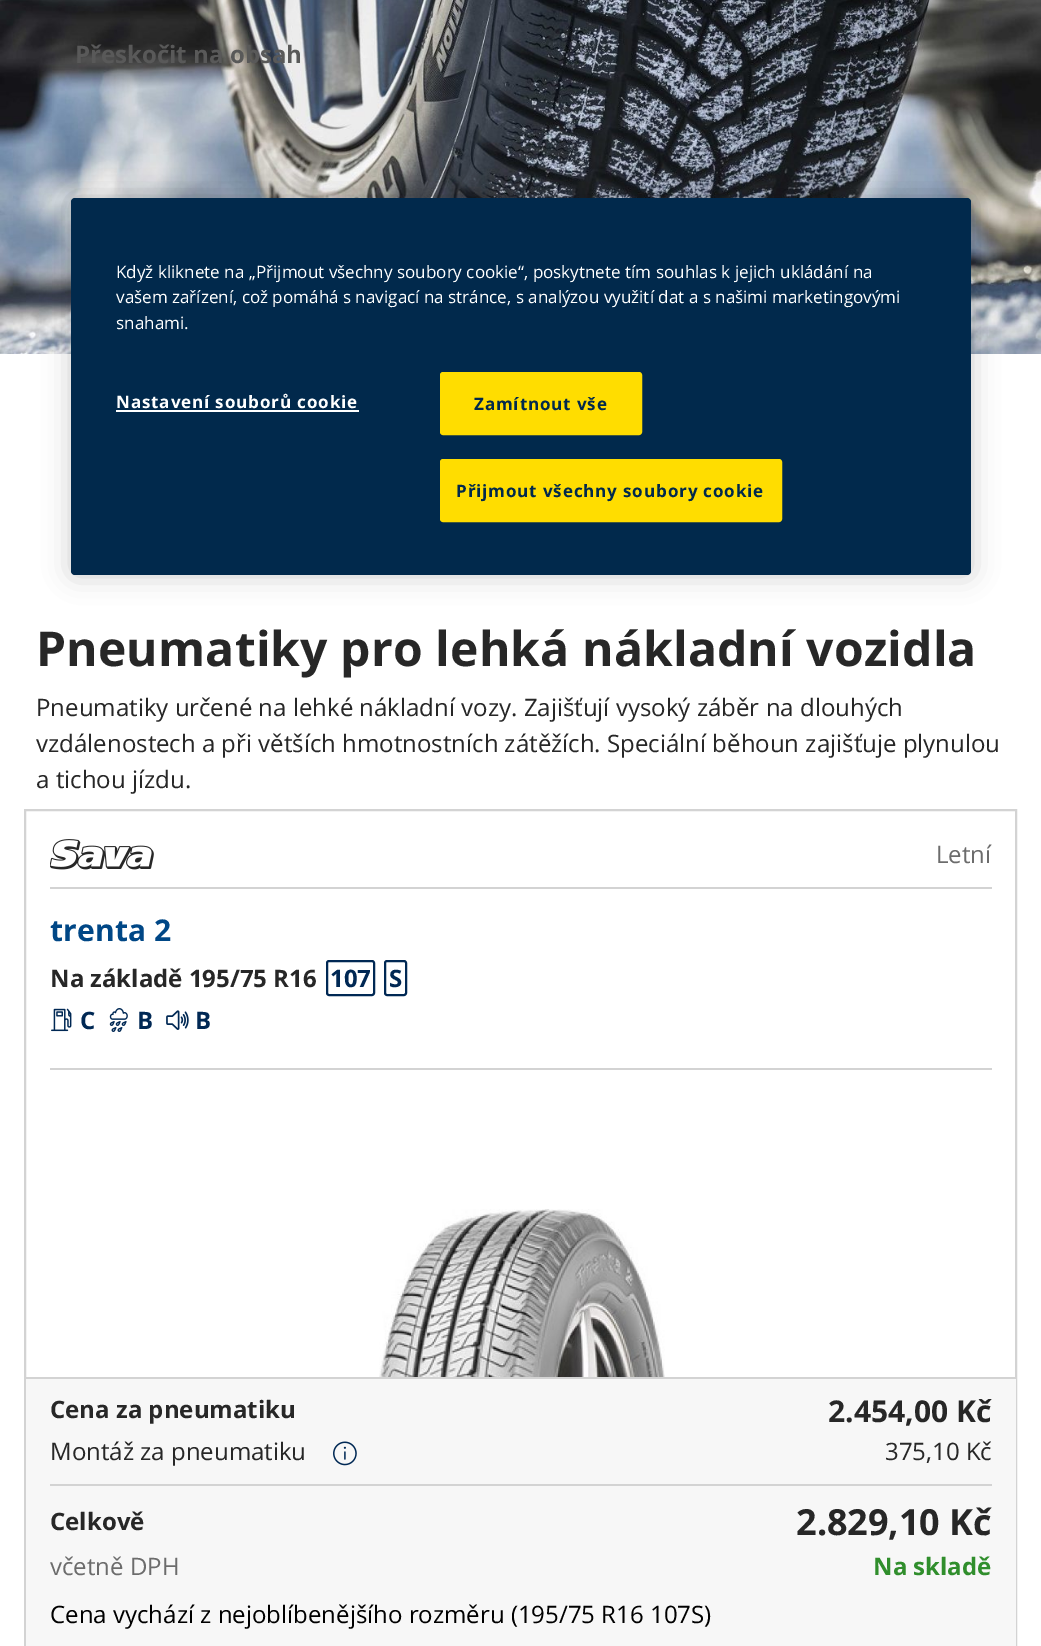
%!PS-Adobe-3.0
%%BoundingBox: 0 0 1041 1646
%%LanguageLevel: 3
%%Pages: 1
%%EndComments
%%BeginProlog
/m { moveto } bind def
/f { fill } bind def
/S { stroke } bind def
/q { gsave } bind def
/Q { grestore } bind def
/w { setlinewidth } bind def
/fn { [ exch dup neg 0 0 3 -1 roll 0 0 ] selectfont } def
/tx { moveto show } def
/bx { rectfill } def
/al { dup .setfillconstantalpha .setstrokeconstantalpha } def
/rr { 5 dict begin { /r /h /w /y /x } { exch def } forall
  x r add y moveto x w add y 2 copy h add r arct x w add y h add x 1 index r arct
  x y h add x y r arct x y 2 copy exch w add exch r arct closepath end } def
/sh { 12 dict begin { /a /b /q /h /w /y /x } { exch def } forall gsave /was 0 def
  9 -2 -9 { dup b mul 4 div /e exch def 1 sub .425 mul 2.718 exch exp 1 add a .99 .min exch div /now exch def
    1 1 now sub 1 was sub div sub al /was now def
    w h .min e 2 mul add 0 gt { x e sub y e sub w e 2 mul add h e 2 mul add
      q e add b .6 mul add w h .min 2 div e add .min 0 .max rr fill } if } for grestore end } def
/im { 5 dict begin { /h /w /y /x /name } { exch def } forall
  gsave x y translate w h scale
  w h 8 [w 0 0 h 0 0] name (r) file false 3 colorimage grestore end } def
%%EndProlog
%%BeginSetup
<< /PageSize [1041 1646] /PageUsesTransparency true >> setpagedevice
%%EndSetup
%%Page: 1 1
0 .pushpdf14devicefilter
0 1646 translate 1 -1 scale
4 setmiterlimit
1 setgray
0 0 1041 1646 bx
(image0.raw) 0 0 1041 354 im
/OpenSans-Bold 24 fn
0.349 setgray
(Přeskočit na obsah) 75 63 tx
0.827 setgray
2 w
25 810 991 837 rectstroke
50 887 942 2 bx
(image1.raw) 50 839 104 31 im
/OpenSans-Regular 24 fn
0.424 setgray
(Letní) 936 863 tx
0.827 setgray
50 1068 942 2 bx
/OpenSans-Bold 30 fn
0 0.278 0.525 setrgbcolor
50 941 m 0.15 0 (trenta 2) ashow
/OpenSans-Bold 24 fn
0.153 setgray
(Na základě 195/75 R16) 50 987 tx
0 0.157 0.329 setrgbcolor
327 961 47 34 2 rr S
(107) 330 987 tx
385 961 21 34 2 rr S
(S) 389 987 tx
(image2.raw) 51 1008 21 24 im
(C) 80 1029 tx
(image3.raw) 109 1008 19 24 im
(B) 137 1029 tx
(image4.raw) 166 1010 23 20 im
(B) 195 1029 tx
0.827 setgray
26 1377 990 2 bx
(image5.raw) 379 1209 286 168 im
0.969 setgray
26 1379 990 267 bx
0.153 setgray
(Cena za pneumatiku) 50 1418 tx
/OpenSans-Bold 30 fn
(2.454,00 Kč) 828 1422 tx
0.827 setgray
50 1484 942 2 bx
/OpenSans-Regular 24 fn
0.153 setgray
(Montáž za pneumatiku) 50 1460 tx
(image6.raw) 333 1441 24 25 im
(375,10 Kč) 885 1460 tx
/OpenSans-Bold 24 fn
(Celkově) 50 1530 tx
/OpenSans-Bold 36 fn
(2.829,10 Kč) 796 1535 tx
/OpenSans-Regular 24 fn
0.424 setgray
(včetně DPH) 50 1575 tx
/OpenSans-Bold 24 fn
0.188 0.557 0.173 setrgbcolor
(Na skladě) 873 1575 tx
/OpenSans-Regular 24 fn
0 setgray
(Cena vychází z nejoblíbenějšího rozměru \(195/75 R16 107S\)) 50 1623 tx
/OpenSans-Bold 48 fn
0.153 setgray
36 666 m 0.15 0 (Pneumatiky pro lehká nákladní vozidla) ashow
/OpenSans-Regular 24 fn
(Pneumatiky určené na lehké nákladní vozy. Zajišťují vysoký záběr na dlouhých) 36 716 tx
(vzdálenostech a při větších hmotnostních zátěžích. Speciální běhoun zajišťuje plynulou) 36 752 tx
(a tichou jízdu.) 36 788 tx
0 setgray
71 198 900 377 4 13.5 0.2 sh
0.004 0.161 0.298 setrgbcolor
71 198 900 377 4 rr f
/OpenSans-Regular 17.05 fn
1 setgray
(Když kliknete na „Přijmout všechny soubory cookie“, poskytnete tím souhlas k jejich ukládání na) 116 278 tx
(vašem zařízení, což pomáhá s navigací na stránce, s analýzou využití dat a s našimi marketingovými) 116 303 tx
(snahami.) 116 329 tx
/OpenSans-Bold 17.05 fn
116 408 m 0.85 0 (Nastavení souborů cookie) ashow
116 410 243 2 bx
1 0.867 0 setrgbcolor
441 373 200 61 2 rr q f Q
S
0.004 0.161 0.298 setrgbcolor
474 410 m 0.85 0 (Zamítnout vše) ashow
1 0.867 0 setrgbcolor
441 460 340 61 2 rr q f Q
S
0.004 0.161 0.298 setrgbcolor
456 497 m 0.85 0 (Přijmout všechny soubory cookie) ashow
.poppdf14devicefilter showpage
%%EOF
